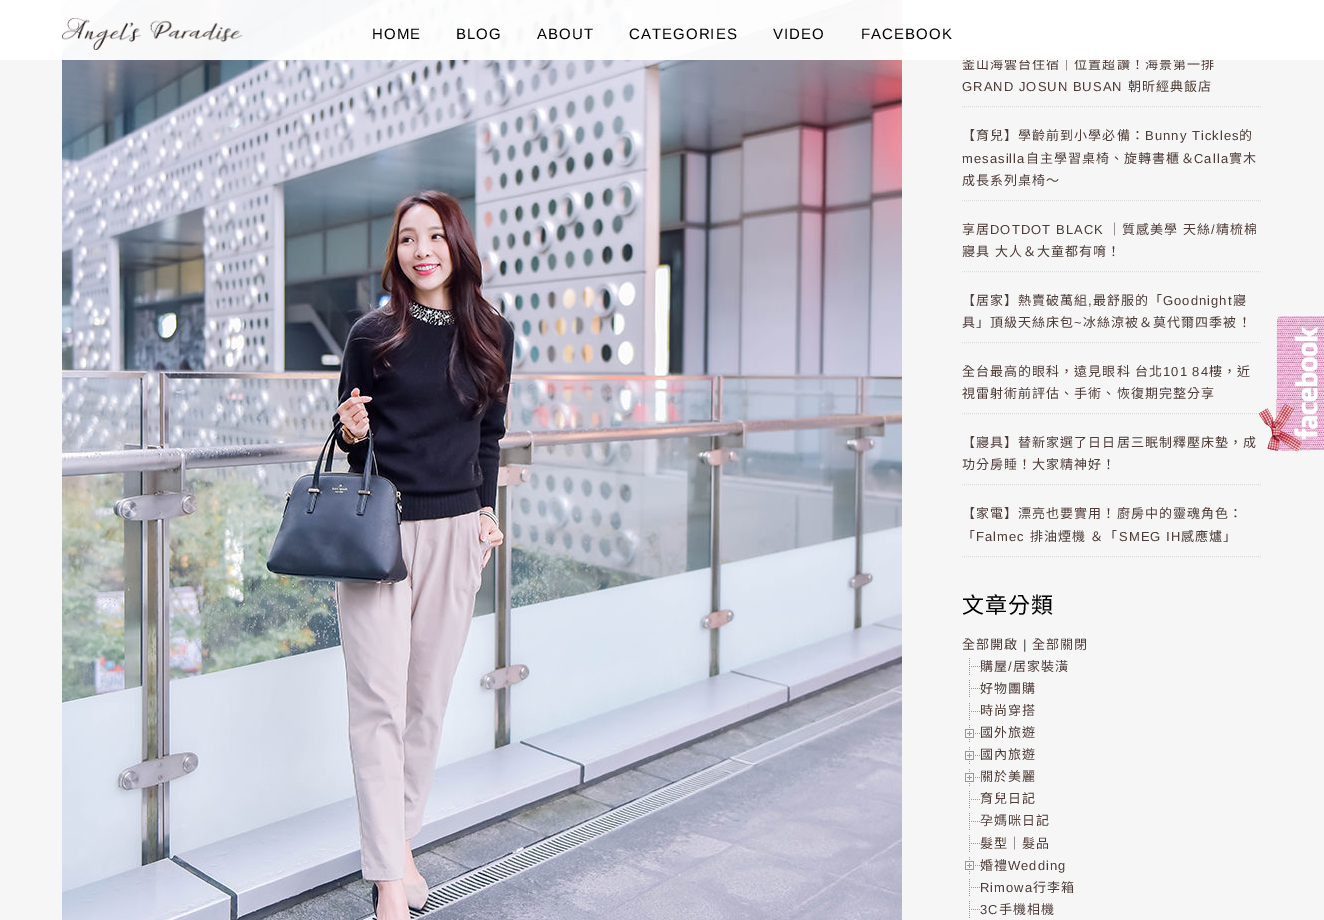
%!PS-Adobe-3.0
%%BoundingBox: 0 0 1324 920
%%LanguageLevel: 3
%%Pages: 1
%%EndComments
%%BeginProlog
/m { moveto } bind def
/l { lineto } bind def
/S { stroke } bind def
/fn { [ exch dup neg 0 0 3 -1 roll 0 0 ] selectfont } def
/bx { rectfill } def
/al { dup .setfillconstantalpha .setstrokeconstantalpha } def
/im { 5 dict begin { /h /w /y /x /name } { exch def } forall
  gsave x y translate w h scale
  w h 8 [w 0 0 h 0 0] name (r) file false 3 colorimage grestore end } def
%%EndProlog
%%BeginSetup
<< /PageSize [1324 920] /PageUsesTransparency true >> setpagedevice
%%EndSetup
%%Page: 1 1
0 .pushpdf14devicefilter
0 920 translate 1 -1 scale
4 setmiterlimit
0.965 setgray
0 0 1324 920 bx
(image1.raw) 62 0 840 920 im
0.867 setgray
[1 1] 0 setdash
962 35.5 m 1262 35.5 l S
/NotoSansCJKTC-Regular 13 fn
0.298 0.231 0.216 setrgbcolor
962 69 m 1.05 0 (釜山海雲台住宿｜位置超讚！海景第一排) ashow
0.95 al
1 setgray
0 0 1324 60 bx
1 al
(image0.raw) 62 18 181 32 im
/LiberationSans-Regular 15 fn
0 setgray
372 39 m 1.05 0 (HOME) ashow
456 39 m 1.05 0 (BLOG) ashow
537 39 m 1.05 0 (ABOUT) ashow
629 39 m 1.05 0 (CATEGORIES) ashow
773 39 m 1.05 0 (VIDEO) ashow
861 39 m 1.05 0 (FACEBOOK) ashow
0.867 setgray
962 106.5 m 1262 106.5 l S
/LiberationSans-Regular 13 fn
0.298 0.231 0.216 setrgbcolor
962 91 m 1.05 0 (GRAND JOSUN BUSAN) ashow
/NotoSansCJKTC-Regular 13 fn
1128 91 m 1.05 0 (朝昕經典飯店) ashow
0.867 setgray
962 200.5 m 1262 200.5 l S
0.298 0.231 0.216 setrgbcolor
962 140 m 1.05 0 (【育兒】學齡前到小學必備：) ashow
/LiberationSans-Regular 13 fn
1145 140 m 1.05 0 (Bunny Tickles) ashow
/NotoSansCJKTC-Regular 13 fn
1239 140 m 1.05 0 (的) ashow
/LiberationSans-Regular 13 fn
962 163 m 1.05 0 (mesasilla) ashow
/NotoSansCJKTC-Regular 13 fn
1026 163 m 1.05 0 (自主學習桌椅、旋轉書櫃＆) ashow
/LiberationSans-Regular 13 fn
1194 163 m 1.05 0 (Calla) ashow
/NotoSansCJKTC-Regular 13 fn
1229 163 m 1.05 0 (實木) ashow
962 185 m 1.05 0 (成長系列桌椅～) ashow
0.867 setgray
962 271.5 m 1262 271.5 l S
0.298 0.231 0.216 setrgbcolor
962 234 m 1.05 0 (享居) ashow
/LiberationSans-Regular 13 fn
990 234 m 1.05 0 (DOTDOT BLACK) ashow
/NotoSansCJKTC-Regular 13 fn
1108 234 m 1.05 0 (｜質感美學) ashow
1183 234 m 1.05 0 (天絲) ashow
/LiberationSans-Regular 13 fn
1211 234 m 1.05 0 (/) ashow
/NotoSansCJKTC-Regular 13 fn
1216 234 m 1.05 0 (精梳棉) ashow
962 256 m 1 0 32 1.05 0 (寢具 大人＆大童都有唷！) awidthshow
0.867 setgray
962 342.5 m 1262 342.5 l S
0.298 0.231 0.216 setrgbcolor
962 305 m 1.05 0 (【居家】熱賣破萬組) ashow
/LiberationSans-Regular 13 fn
1088 305 m 1.05 0 (,) ashow
/NotoSansCJKTC-Regular 13 fn
1093 305 m 1.05 0 (最舒服的「) ashow
/LiberationSans-Regular 13 fn
1163 305 m 1.05 0 (Goodnight) ashow
/NotoSansCJKTC-Regular 13 fn
1233 305 m 1.05 0 (寢) ashow
962 327 m 1.05 0 (具」頂級天絲床包) ashow
/LiberationSans-Regular 13 fn
1074 327 m 1.05 0 (~) ashow
/NotoSansCJKTC-Regular 13 fn
1083 327 m 1.05 0 (冰絲涼被＆莫代爾四季被！) ashow
0.867 setgray
962 413.5 m 1262 413.5 l S
0.298 0.231 0.216 setrgbcolor
962 376 m 1.05 0 (全台最高的眼科，遠見眼科) ashow
1135 376 m 1.05 0 (台北) ashow
/LiberationSans-Regular 13 fn
1163 376 m 1.05 0 (101 84) ashow
/NotoSansCJKTC-Regular 13 fn
1209 376 m 1.05 0 (樓，近) ashow
962 398 m 1.05 0 (視雷射術前評估、手術、恢復期完整分享) ashow
0.867 setgray
962 484.5 m 1262 484.5 l S
0.298 0.231 0.216 setrgbcolor
962 447 m 1.05 0 (【寢具】替新家選了日日居三眠制釋壓床墊，成) ashow
962 469 m 1.05 0 (功分房睡！大家精神好！) ashow
0.867 setgray
962 556.5 m 1262 556.5 l S
0.298 0.231 0.216 setrgbcolor
962 518 m 1.05 0 (【家電】漂亮也要實用！廚房中的靈魂角色：) ashow
962 541 m 1.05 0 (「) ashow
/LiberationSans-Regular 13 fn
976 541 m 1.05 0 (Falmec) ashow
/NotoSansCJKTC-Regular 13 fn
1030 541 m 1.05 0 (排油煙機) ashow
1090 541 m 1.05 0 (＆「) ashow
/LiberationSans-Regular 13 fn
1119 541 m 1.05 0 (SMEG IH) ashow
/NotoSansCJKTC-Regular 13 fn
1181 541 m 1.05 0 (感應爐」) ashow
/NotoSansCJKTC-Regular 22 fn
0 setgray
962 613 m 1 0 (文章分類) ashow
/NotoSansCJKTC-Regular 13 fn
0.298 0.231 0.216 setrgbcolor
962 649 m 1 0 (全部開啟) ashow
/LiberationSans-Regular 13 fn
0.2 setgray
1023 649 m 1 0 (|) ashow
/NotoSansCJKTC-Regular 13 fn
0.298 0.231 0.216 setrgbcolor
1032 649 m 1 0 (全部關閉) ashow
(image2.raw) 969 658 11 17 im
980 671 m 1 0 (購屋) ashow
/LiberationSans-Regular 13 fn
1008 671 m 1 0 (/) ashow
/NotoSansCJKTC-Regular 13 fn
1013 671 m 1 0 (居家裝潢) ashow
(image2.raw) 969 680 11 17 im
980 693 m 1 0 (好物團購) ashow
(image2.raw) 969 703 11 17 im
980 715 m 1 0 (時尚穿搭) ashow
(image3.raw) 965 725 15 17 im
980 737 m 1 0 (國外旅遊) ashow
(image3.raw) 965 747 15 17 im
980 759 m 1 0 (國內旅遊) ashow
(image3.raw) 965 769 15 17 im
980 781 m 1 0 (關於美麗) ashow
(image2.raw) 969 791 11 17 im
980 803 m 1 0 (育兒日記) ashow
(image2.raw) 969 813 11 17 im
980 825 m 1 0 (孕媽咪日記) ashow
(image2.raw) 969 835 11 17 im
980 848 m 1 0 (髮型｜髮品) ashow
(image3.raw) 965 857 15 17 im
980 870 m 1 0 (婚禮) ashow
/LiberationSans-Regular 13 fn
1008 870 m 1 0 (Wedding) ashow
(image2.raw) 969 879 11 17 im
980 892 m 1 0 (Rimowa) ashow
/NotoSansCJKTC-Regular 13 fn
1033 892 m 1 0 (行李箱) ashow
(image2.raw) 969 901 11 17 im
/LiberationSans-Regular 13 fn
980 914 m 1 0 (3C) ashow
/NotoSansCJKTC-Regular 13 fn
999 914 m 1 0 (手機相機) ashow
(image4.raw) 1258 316 66 136 im
.poppdf14devicefilter showpage
%%EOF
